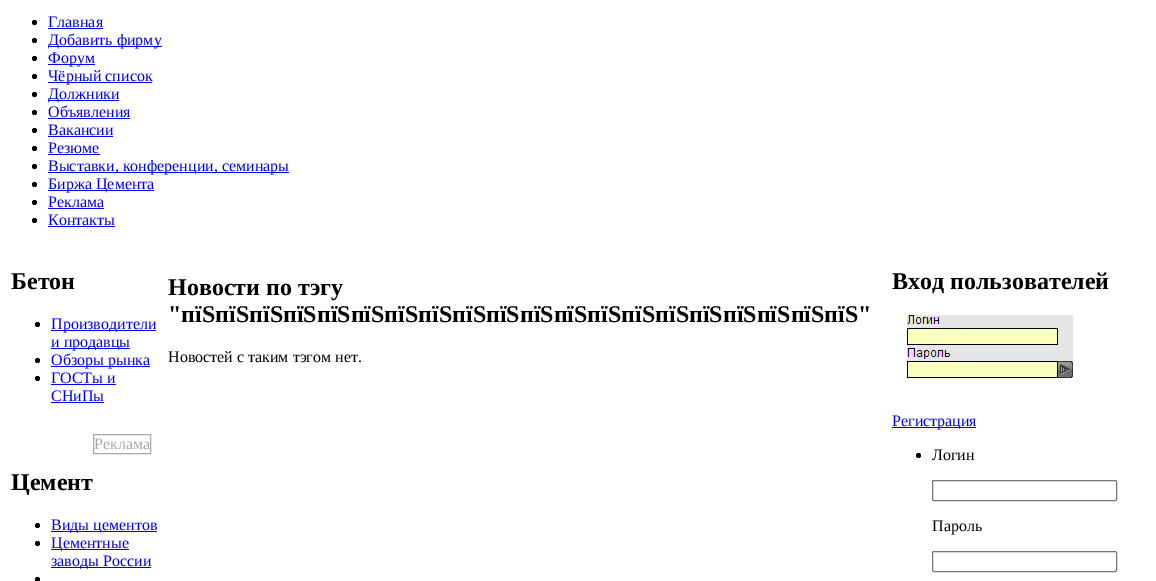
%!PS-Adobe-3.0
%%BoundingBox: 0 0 1156 581
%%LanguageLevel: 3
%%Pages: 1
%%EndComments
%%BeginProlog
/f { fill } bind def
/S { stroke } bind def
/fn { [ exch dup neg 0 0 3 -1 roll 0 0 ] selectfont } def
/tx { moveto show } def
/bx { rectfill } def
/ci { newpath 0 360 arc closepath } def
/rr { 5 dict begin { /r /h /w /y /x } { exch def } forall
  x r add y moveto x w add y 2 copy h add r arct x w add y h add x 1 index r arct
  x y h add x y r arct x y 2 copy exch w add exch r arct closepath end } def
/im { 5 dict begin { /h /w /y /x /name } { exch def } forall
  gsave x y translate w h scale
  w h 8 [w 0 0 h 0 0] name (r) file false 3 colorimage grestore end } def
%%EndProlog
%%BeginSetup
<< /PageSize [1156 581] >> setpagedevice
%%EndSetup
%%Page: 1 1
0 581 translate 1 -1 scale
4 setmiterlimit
1 setgray
0 0 1156 581 bx
0 setgray
34.5 22.5 2.5 ci f
/LiberationSerif-Regular 16 fn
0 0 0.933 setrgbcolor
(Главная) 48 27 tx
48 28 55 1 bx
0 setgray
34.5 40.5 2.5 ci f
0 0 0.933 setrgbcolor
48 46 114 1 bx
(Добавить фирму) 48 45 tx
0 setgray
34.5 58.5 2.5 ci f
0 0 0.933 setrgbcolor
48 64 47 1 bx
(Форум) 48 63 tx
0 setgray
34.5 76.5 2.5 ci f
0 0 0.933 setrgbcolor
48 82 104 1 bx
(Чёрный список) 48 81 tx
0 setgray
34.5 94.5 2.5 ci f
0 0 0.933 setrgbcolor
48 100 71 1 bx
(Должники) 48 99 tx
0 setgray
34.5 112.5 2.5 ci f
0 0 0.933 setrgbcolor
(Объявления) 48 117 tx
48 118 82 1 bx
0 setgray
34.5 130.5 2.5 ci f
0 0 0.933 setrgbcolor
(Вакансии) 48 135 tx
48 136 65 1 bx
0 setgray
34.5 148.5 2.5 ci f
0 0 0.933 setrgbcolor
(Резюме) 48 153 tx
48 154 52 1 bx
0 setgray
34.5 166.5 2.5 ci f
0 0 0.933 setrgbcolor
48 172 241 1 bx
(Выставки, конференции, семинары) 48 171 tx
0 setgray
34.5 184.5 2.5 ci f
0 0 0.933 setrgbcolor
48 190 106 1 bx
(Биржа Цемента) 48 189 tx
0 setgray
34.5 202.5 2.5 ci f
0 0 0.933 setrgbcolor
(Реклама) 48 207 tx
48 208 56 1 bx
0 setgray
34.5 220.5 2.5 ci f
0 0 0.933 setrgbcolor
(Контакты) 48 225 tx
48 226 67 1 bx
/LiberationSerif-Bold 24 fn
0 setgray
(Бетон) 11 289 tx
37.5 324.5 2.5 ci f
0 0 0.933 setrgbcolor
51 330 105 1 bx
/LiberationSerif-Regular 16 fn
(Производители) 51 329 tx
51 348 79 1 bx
(и продавцы) 51 347 tx
0 setgray
37.5 360.5 2.5 ci f
0 0 0.933 setrgbcolor
51 366 99 1 bx
(Обзоры рынка) 51 365 tx
0 setgray
37.5 378.5 2.5 ci f
0 0 0.933 setrgbcolor
(ГОСТы и) 51 383 tx
51 384 65 1 bx
(СНиПы) 51 401 tx
51 402 53 1 bx
0.663 setgray
93.5 434.5 57 19 rectstroke
(Реклама) 94 449 tx
/LiberationSerif-Bold 24 fn
0 setgray
(Цемент) 11 490 tx
37.5 525.5 2.5 ci f
0 0 0.933 setrgbcolor
51 531 106 1 bx
/LiberationSerif-Regular 16 fn
(Виды цементов) 51 530 tx
0 setgray
37.5 543.5 2.5 ci f
0 0 0.933 setrgbcolor
51 549 78 1 bx
(Цементные) 51 548 tx
51 567 100 1 bx
(заводы России) 51 566 tx
0 setgray
37.5 579.5 2.5 ci f
/LiberationSerif-Bold 24 fn
(Новости по тэгу) 168 295 tx
("пїЅпїЅпїЅпїЅпїЅпїЅпїЅпїЅпїЅпїЅпїЅпїЅпїЅпїЅпїЅпїЅпїЅпїЅпїЅпїЅ") 168 322 tx
/LiberationSerif-Regular 16 fn
(Новостей с таким тэгом нет.) 168 362 tx
/LiberationSerif-Bold 24 fn
(Вход пользователей) 892 289 tx
(image0.raw) 907 315 166 63 im
0 0 0.933 setrgbcolor
892 427 84 1 bx
/LiberationSerif-Regular 16 fn
(Регистрация) 892 426 tx
0 setgray
918.5 455.5 2.5 ci f
(Логин) 932 460 tx
0.463 setgray
932.5 480.5 184 20 1.5 rr S
0 setgray
(Пароль) 932 531 tx
0.463 setgray
932.5 551.5 184 20 1.5 rr S
showpage
%%EOF
